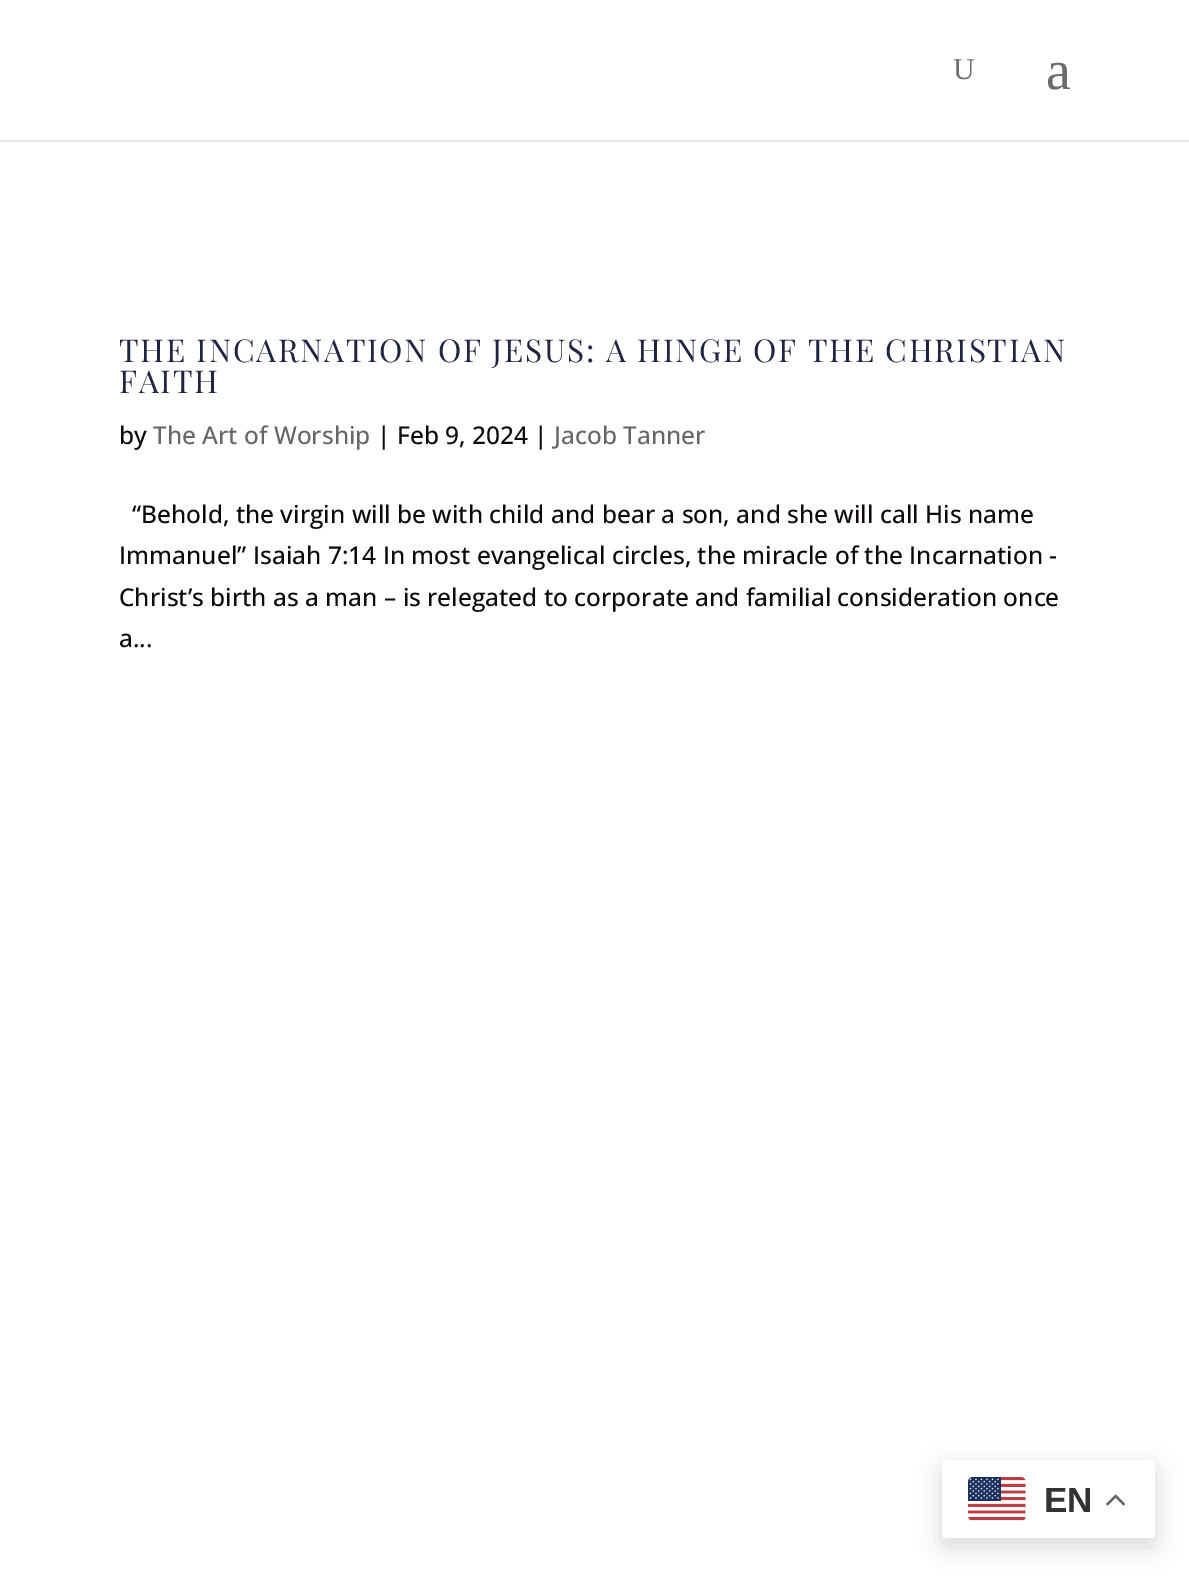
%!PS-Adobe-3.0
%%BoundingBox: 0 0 1189 1584
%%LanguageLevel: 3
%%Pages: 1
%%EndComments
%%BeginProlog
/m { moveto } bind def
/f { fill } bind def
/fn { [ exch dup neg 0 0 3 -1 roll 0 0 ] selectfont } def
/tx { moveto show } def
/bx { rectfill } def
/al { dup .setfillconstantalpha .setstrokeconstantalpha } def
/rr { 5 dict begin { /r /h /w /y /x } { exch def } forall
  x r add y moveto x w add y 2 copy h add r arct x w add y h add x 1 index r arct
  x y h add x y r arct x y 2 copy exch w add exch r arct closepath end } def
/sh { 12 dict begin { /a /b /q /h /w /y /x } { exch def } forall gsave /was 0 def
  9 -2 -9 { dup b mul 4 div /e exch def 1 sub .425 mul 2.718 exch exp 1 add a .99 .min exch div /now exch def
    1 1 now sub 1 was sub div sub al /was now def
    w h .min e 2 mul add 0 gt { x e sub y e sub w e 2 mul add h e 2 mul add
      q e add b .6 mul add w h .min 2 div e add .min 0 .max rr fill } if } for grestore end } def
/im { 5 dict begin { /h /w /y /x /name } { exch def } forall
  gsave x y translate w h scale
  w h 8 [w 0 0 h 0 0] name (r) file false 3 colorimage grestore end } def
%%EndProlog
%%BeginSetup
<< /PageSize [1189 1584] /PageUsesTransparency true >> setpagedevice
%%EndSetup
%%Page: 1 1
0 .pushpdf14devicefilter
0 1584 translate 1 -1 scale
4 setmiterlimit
1 setgray
0 0 1189 1584 bx
0.902 setgray
0 140 1189 2 bx
/LiberationSerif-Regular 30 fn
0.431 0.42 0.42 setrgbcolor
(U) 953 79 tx
/LiberationSerif-Regular 56 fn
(a) 1046 89 tx
/PlayfairDisplay-Regular 31.5 fn
0.125 0.141 0.267 setrgbcolor
119 362 m 1.75 0 (THE INCARNATION OF JESUS: A HINGE OF THE CHRISTIAN) ashow
119 393 m 1.75 0 (FAITH) ashow
/OpenSans-Medium 24.5 fn
0.055 0.035 0.035 setrgbcolor
(by) 119 444 tx
0.4 setgray
(The Art of Worship) 153 444 tx
0.055 0.035 0.035 setrgbcolor
(| Feb 9, 2024 |) 377 444 tx
0.4 setgray
(Jacob Tanner) 554 444 tx
0.055 0.035 0.035 setrgbcolor
(“Behold, the virgin will be with child and bear a son, and she will call His name) 132 523 tx
(Immanuel” Isaiah 7:14 In most evangelical circles, the miracle of the Incarnation -) 119 564 tx
(Christ’s birth as a man – is relegated to corporate and familial consideration once) 119 606 tx
(a...) 119 647 tx
0 setgray
942 1468 213 79 4 13 0.15 sh
1 setgray
942 1460 213 78 4 rr f
(image0.raw) 968 1477 58 44 im
/LiberationSans-Bold 35 fn
0.2 setgray
(EN) 1044 1512 tx
(image1.raw) 1106 1494 19 12 im
.poppdf14devicefilter showpage
%%EOF
